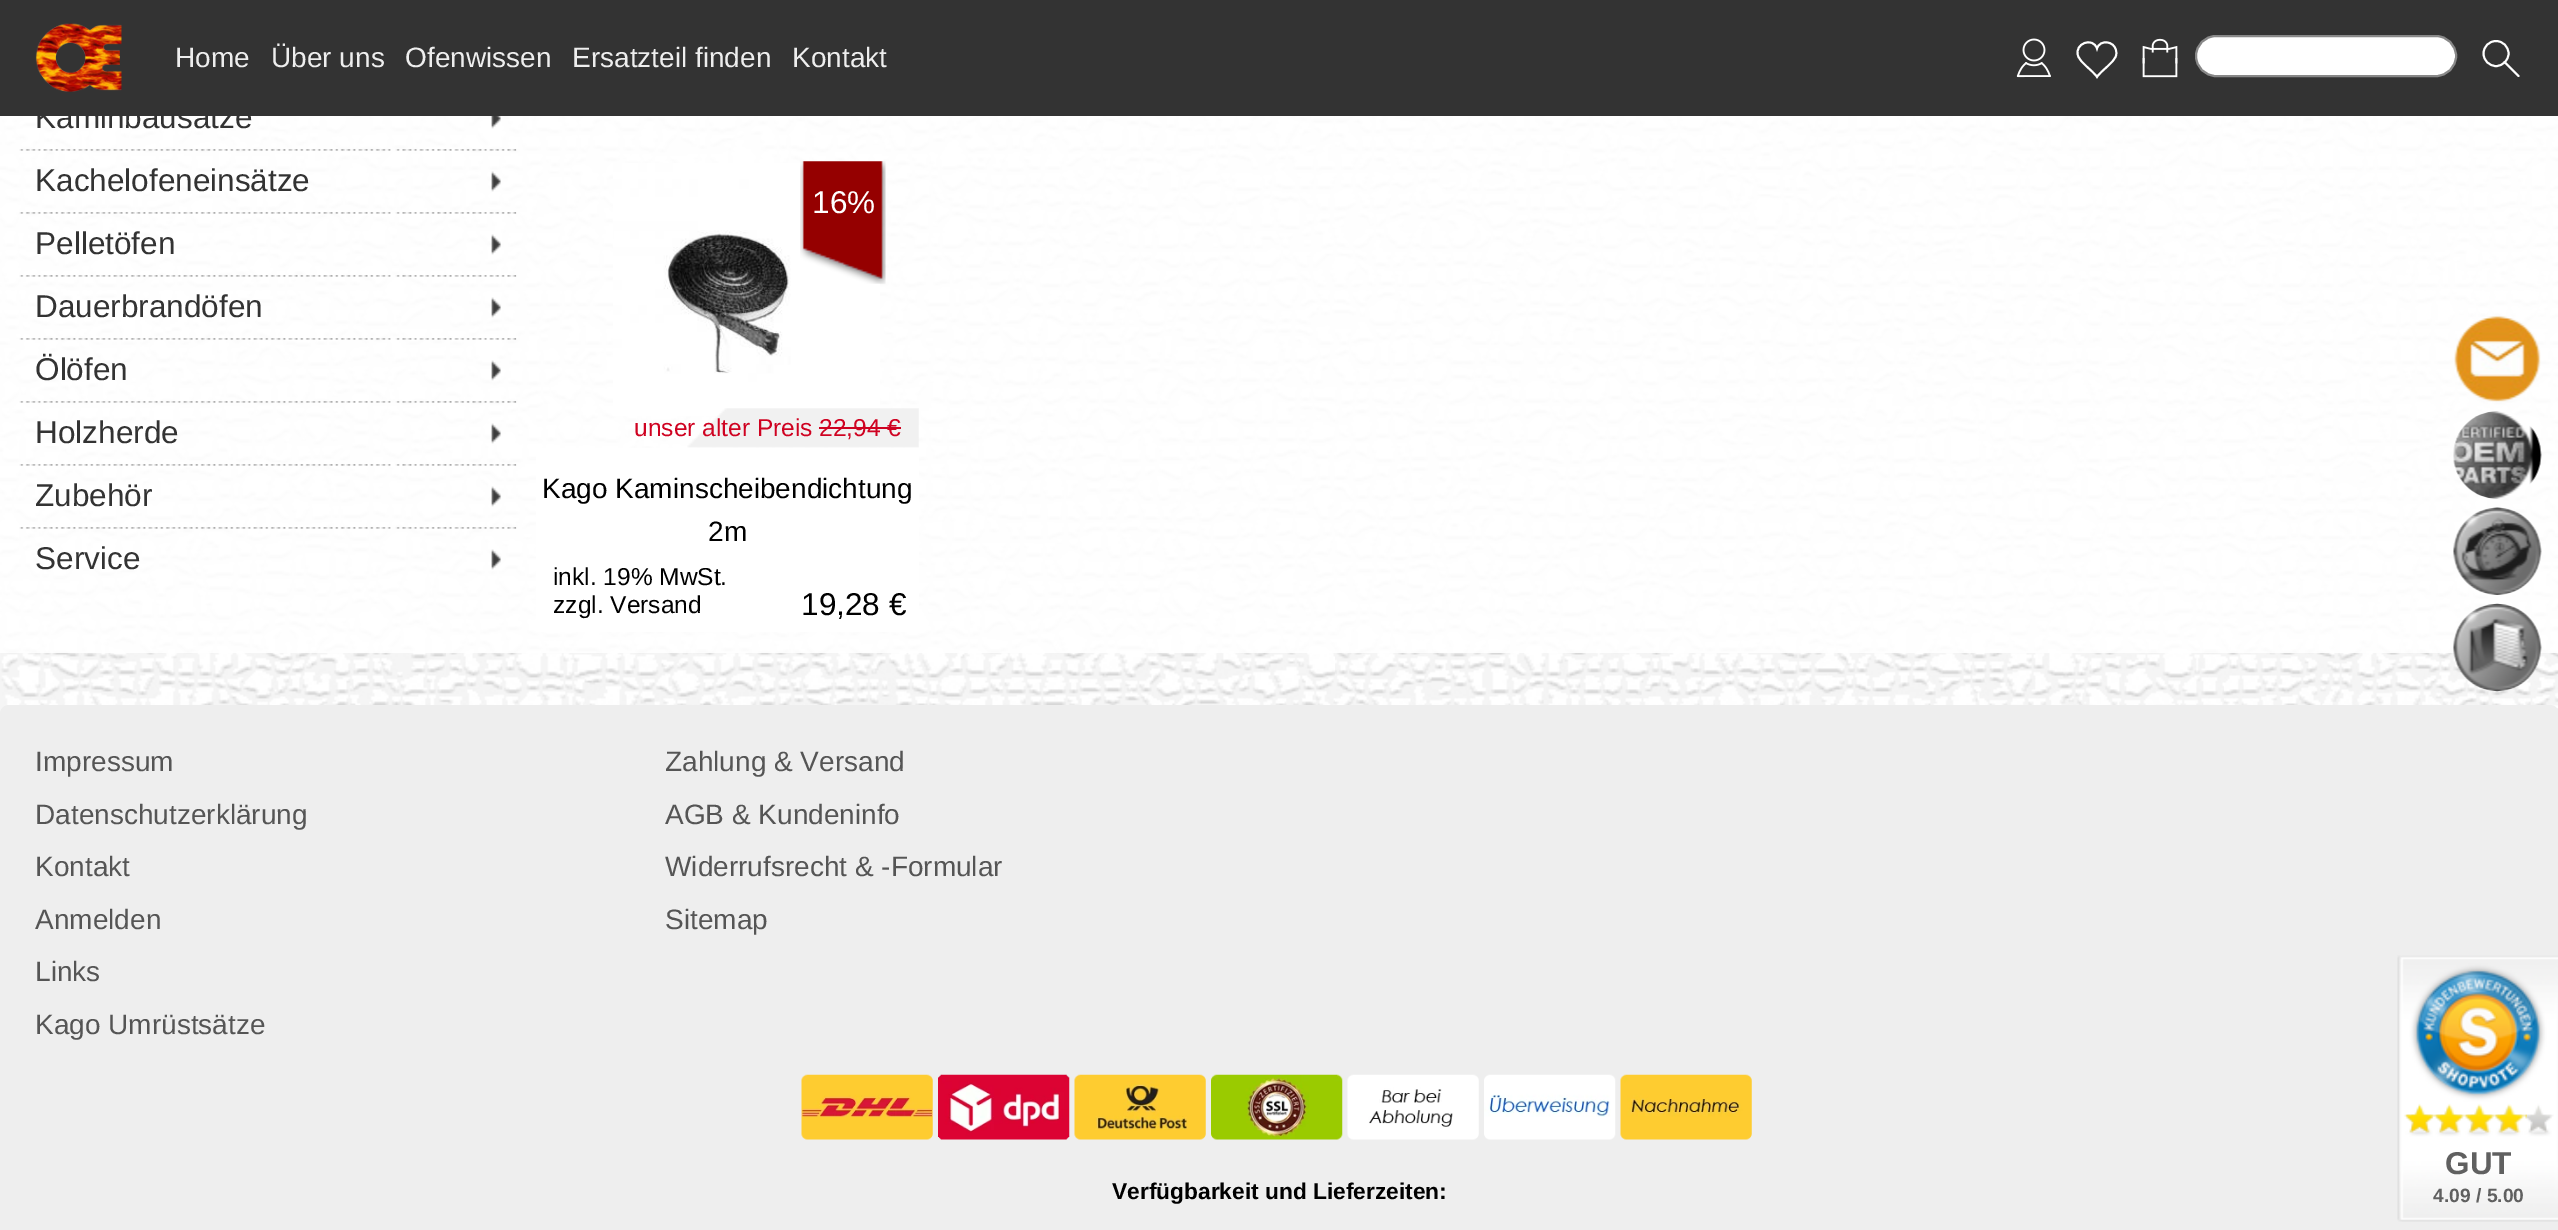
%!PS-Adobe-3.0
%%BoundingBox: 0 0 2558 1230
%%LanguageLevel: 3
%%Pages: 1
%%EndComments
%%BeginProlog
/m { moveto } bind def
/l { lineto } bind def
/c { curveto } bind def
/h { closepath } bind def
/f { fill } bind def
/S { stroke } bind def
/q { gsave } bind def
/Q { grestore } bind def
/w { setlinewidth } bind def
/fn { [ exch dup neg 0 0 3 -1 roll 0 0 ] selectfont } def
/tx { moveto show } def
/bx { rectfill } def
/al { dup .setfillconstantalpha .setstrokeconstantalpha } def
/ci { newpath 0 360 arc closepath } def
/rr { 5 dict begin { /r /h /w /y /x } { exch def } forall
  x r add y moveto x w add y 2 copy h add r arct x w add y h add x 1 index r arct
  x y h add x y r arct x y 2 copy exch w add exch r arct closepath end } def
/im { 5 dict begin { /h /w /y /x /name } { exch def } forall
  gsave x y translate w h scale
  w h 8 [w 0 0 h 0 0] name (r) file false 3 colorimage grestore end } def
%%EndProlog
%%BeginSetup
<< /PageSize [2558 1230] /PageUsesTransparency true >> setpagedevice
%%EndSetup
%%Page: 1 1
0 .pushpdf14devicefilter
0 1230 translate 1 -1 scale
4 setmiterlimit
1 setgray
0 0 2558 1230 bx
(image0.raw) 0 116 2558 598 im
0.2 setgray
0 0 2558 116 bx
(image1.raw) 35 23 87 69 im
/LiberationSans-Regular 28 fn
0.933 setgray
(Home) 175 67 tx
(Über uns) 271 67 tx
(Ofenwissen) 405 67 tx
(Ersatzteil finden) 572 67 tx
(Kontakt) 792 67 tx
(image2.raw) 2016 38 35 40 im
1 setgray
1.9 w
2097 77 m 2092 69.5 2080.5 63.5 2078 55.5 c 2074 43.5 2093 36.5 2097 48.5 c 2100 39 2114.5 41 2116 50.5 c 2116.5 52.5 2116.5 54 2116 55.5 c 2113.5 63.5 2102 69.5 2097 77 c h S
(image3.raw) 2142 38 36 40 im
2196 36 260 40 20 rr q f Q
0.533 setgray
2 w
S
1 setgray
1.9 w
2496 53.5 12.5 ci S
1 setlinecap
2504.5 62 m 2518.5 76 l S
0.9 al
0 116 516 537 bx
/LiberationSans-Regular 31.5 fn
1 al
0.2 setgray
(Kaminbausätze) 35 128 tx
(image4.raw) 491 116 10 13 im
0.9 al
1 setgray
516 116 2042 537 bx
1 al
(image5.raw) 19 149 498 2 im
0.2 setgray
(Kachelofeneinsätze) 35 191 tx
(image6.raw) 491 171 10 21 im
(image7.raw) 19 212 498 2 im
(Pelletöfen) 35 254 tx
(image8.raw) 491 234 10 21 im
(image9.raw) 19 275 498 2 im
(Dauerbrandöfen) 35 317 tx
(image10.raw) 491 297 10 21 im
(image11.raw) 19 338 498 2 im
(Ölöfen) 35 380 tx
(image12.raw) 491 360 10 21 im
(image13.raw) 19 401 498 2 im
(Holzherde) 35 443 tx
(image14.raw) 491 423 10 21 im
(image15.raw) 19 464 498 2 im
(Zubehör) 35 506 tx
(image16.raw) 491 486 10 21 im
(image17.raw) 19 527 498 2 im
(Service) 35 569 tx
(image18.raw) 491 549 10 21 im
(image19.raw) 613 163 267 253 im
(image20.raw) 800 161 86 123 im
1 setgray
(16%) 812 213 tx
536 448 383 184 bx
(image21.raw) 687 408 232 40 im
/LiberationSans-Regular 24.5 fn
0.812 0.008 0.129 setrgbcolor
(unser alter Preis 22,94 €) 634 436 tx
819 427 82 2 bx
/LiberationSans-Regular 28 fn
0 setgray
(Kago Kaminscheibendichtung) 542 498 tx
(2m) 708 541 tx
/LiberationSans-Regular 24.5 fn
(inkl. 19% MwSt.) 553 585 tx
(zzgl. Versand) 553 613 tx
/LiberationSans-Regular 31.5 fn
(19,28 €) 801 615 tx
(image22.raw) 2454 316 87 86 im
(image23.raw) 2453 411 89 88 im
(image24.raw) 2453 507 89 88 im
(image25.raw) 2453 603 89 89 im
0.933 setgray
9 705 m 2550 705 l 2555 705 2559 709 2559 714 c 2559 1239 l 0 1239 l 0 714 l 0 709 4 705 9 705 c h f
/LiberationSans-Regular 28 fn
0.333 setgray
(Impressum) 35 771 tx
(Datenschutzerklärung) 35 824 tx
(Kontakt) 35 876 tx
(Anmelden) 35 929 tx
(Links) 35 981 tx
(Kago Umrüstsätze) 35 1034 tx
(Zahlung & Versand) 665 771 tx
(AGB & Kundeninfo) 665 824 tx
(Widerrufsrecht & -Formular) 665 876 tx
(Sitemap) 665 929 tx
(image26.raw) 801 1074 132 66 im
(image27.raw) 938 1074 132 66 im
(image28.raw) 1074 1074 132 66 im
(image29.raw) 1211 1074 132 66 im
(image30.raw) 1347 1074 132 66 im
(image31.raw) 1484 1074 132 66 im
(image32.raw) 1620 1074 132 66 im
/LiberationSans-Bold 22.75 fn
0 setgray
(Verfügbarkeit und Lieferzeiten:) 1112 1199 tx
(image33.raw) 2397 955 161 267 im
(image34.raw) 2404 1104 123 29 im
/LiberationSans-Bold 31.5 fn
0.376 setgray
(GUT) 2445 1174 tx
/LiberationSans-Bold 19.25 fn
(4.09 / 5.00) 2433 1202 tx
.poppdf14devicefilter showpage
%%EOF
